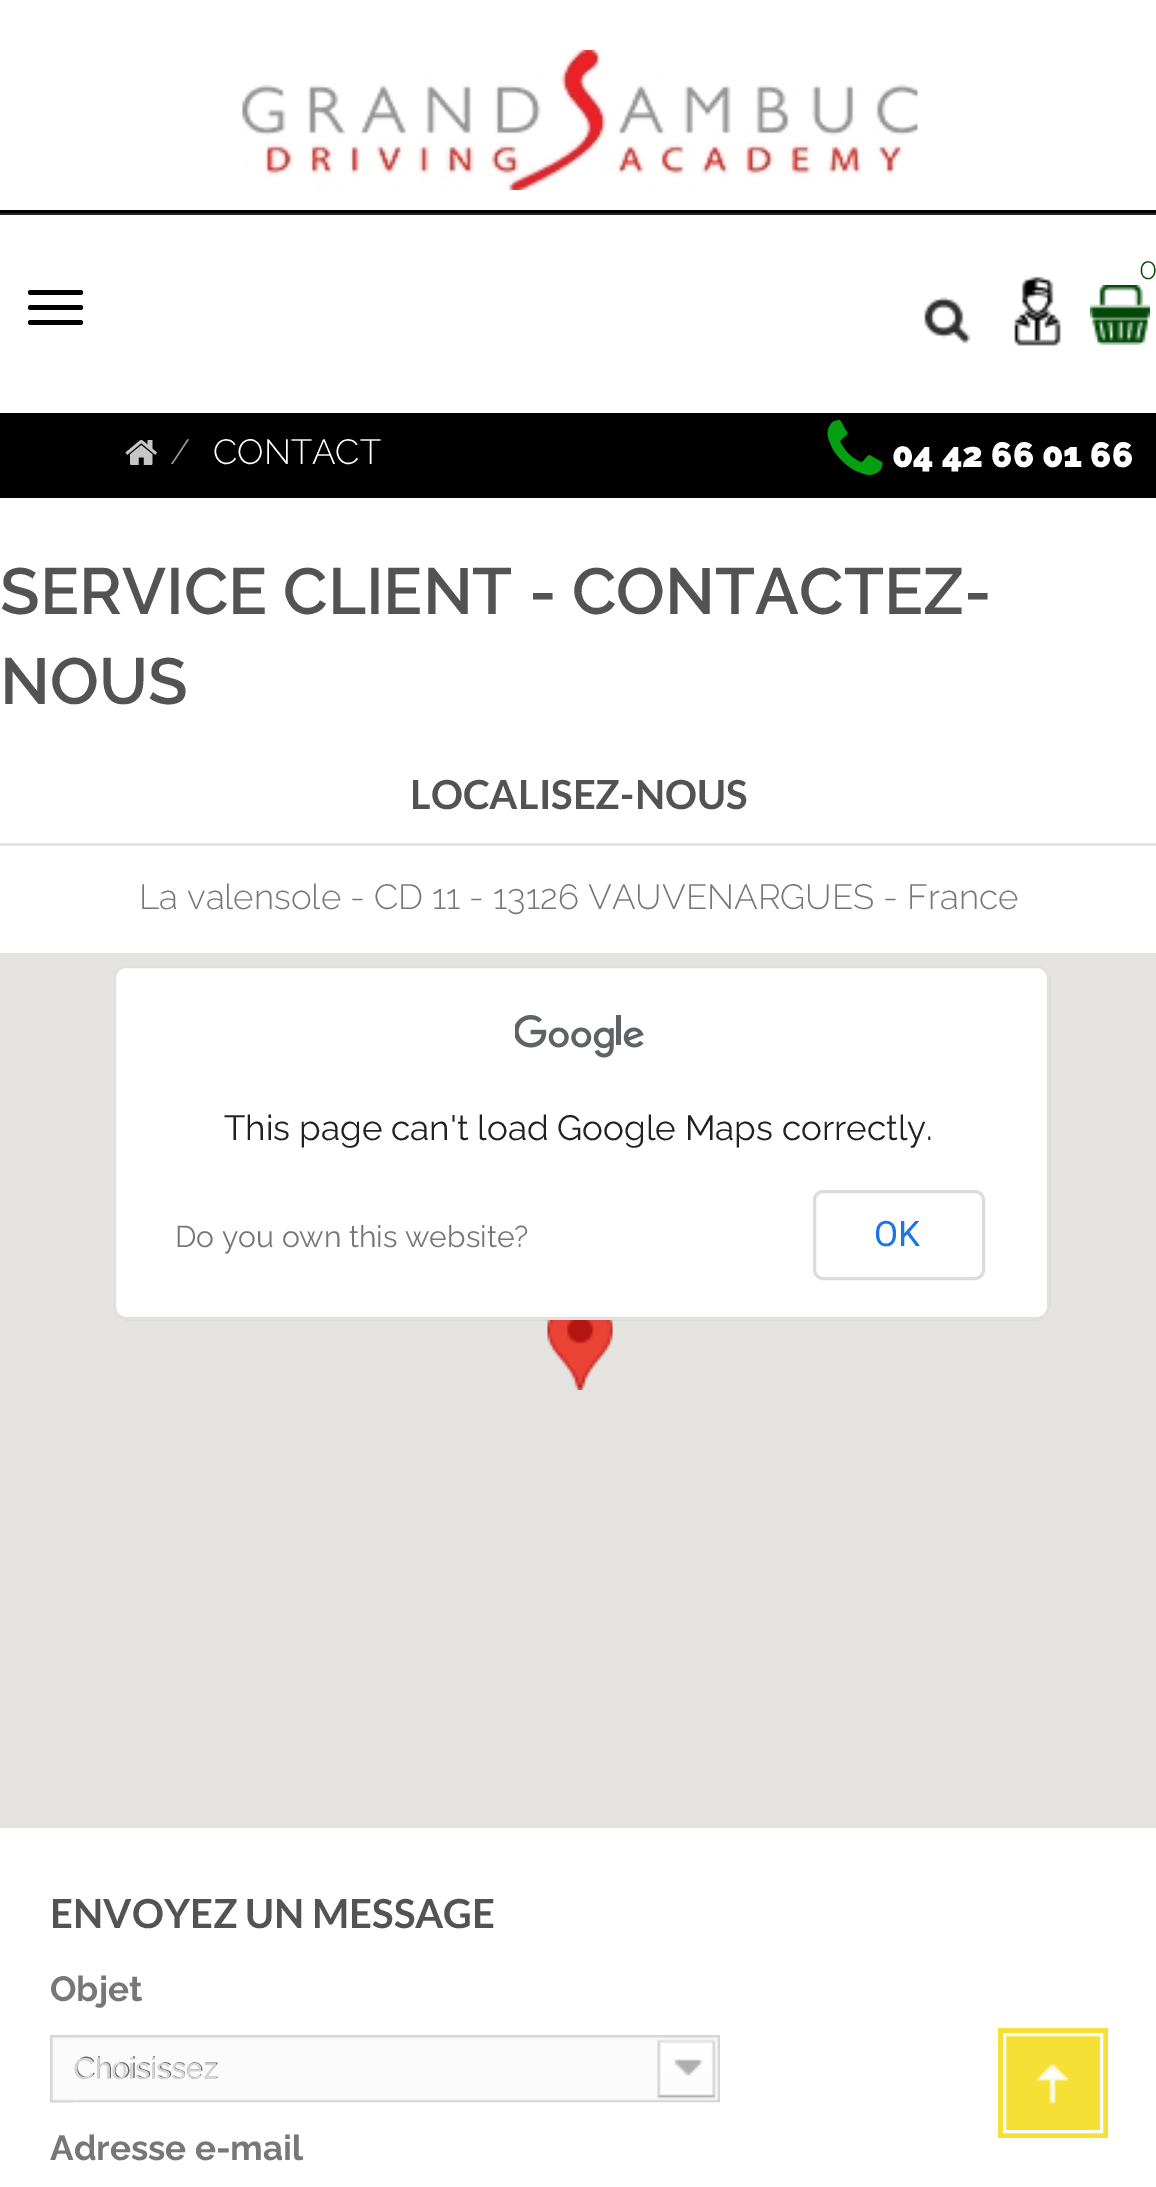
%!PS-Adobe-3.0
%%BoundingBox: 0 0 1156 2187
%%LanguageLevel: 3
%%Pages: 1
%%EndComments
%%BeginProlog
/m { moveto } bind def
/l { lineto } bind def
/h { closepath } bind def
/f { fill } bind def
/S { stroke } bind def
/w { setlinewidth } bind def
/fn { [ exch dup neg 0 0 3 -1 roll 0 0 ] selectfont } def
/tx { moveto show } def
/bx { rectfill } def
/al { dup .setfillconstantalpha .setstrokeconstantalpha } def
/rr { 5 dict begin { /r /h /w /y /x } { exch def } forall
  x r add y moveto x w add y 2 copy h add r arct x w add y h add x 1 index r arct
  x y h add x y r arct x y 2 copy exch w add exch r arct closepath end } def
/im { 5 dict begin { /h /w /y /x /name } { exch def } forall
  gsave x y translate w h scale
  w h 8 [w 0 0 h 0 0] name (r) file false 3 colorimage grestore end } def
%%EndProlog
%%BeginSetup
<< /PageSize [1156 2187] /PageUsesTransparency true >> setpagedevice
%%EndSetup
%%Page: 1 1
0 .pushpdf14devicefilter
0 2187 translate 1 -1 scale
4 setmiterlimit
1 setgray
0 0 1156 2187 bx
0.141 setgray
0 212 m 0 215 l 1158 215 l 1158 53 l 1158 212 l h f
0 setgray
0 210 1156 3 bx
(image0.raw) 242 50 676 140 im
(image1.raw) 1090 285 60 60 im
/Raleway-Light 30 fn
0.012 0.29 0.031 setrgbcolor
(0) 1139 279 tx
(image2.raw) 924 297 47 47 im
(image3.raw) 1014 276 47 70 im
0 setgray
28 290 55 5 2.5 rr f
28 305 55 5 2.5 rr f
28 320 55 5 2.5 rr f
0 413 1156 85 bx
(image4.raw) 125 439 32 26 im
/Raleway-Light 35 fn
0.6 setgray
(/) 170 464 tx
1 setgray
(CONTACT) 213 464 tx
(image5.raw) 827 420 56 55 im
/Raleway-Black 35 fn
(04 42 66 01 66) 892 467 tx
/Raleway-SemiBold 65 fn
0.325 setgray
(SERVICE CLIENT - CONTACTEZ-) 0 614 tx
(NOUS) 0 704 tx
0.898 setgray
0 843 1156 3 bx
/Lato-Bold 40 fn
0.325 setgray
(LOCALISEZ-NOUS) 410 809 tx
/Raleway-Light 35 fn
0.467 setgray
(La valensole - CD 11 - 13126 VAUVENARGUES - France) 139 909 tx
0.898 0.89 0.875 setrgbcolor
0 953 1156 875 bx
(image6.raw) 547 1320 66 70 im
1 setgray
113 965 937 355 13 rr f
0.12 al
0 setgray
3 w
114.5 966.5 934 352 11.5 rr S
1 al
(image7.raw) 515 1015 129 43 im
/Raleway-Regular 35 fn
0.129 setgray
(This page can't load Google Maps correctly.) 224 1140 tx
/Raleway-Regular 30 fn
0.467 setgray
(Do you own this website?) 175 1247 tx
0.855 0.863 0.878 setrgbcolor
814.5 1191.5 169 87 8.5 rr S
/Roboto-Regular 35 fn
0.102 0.451 0.91 setrgbcolor
(OK) 874 1246 tx
/Lato-Bold 40 fn
0.325 setgray
(ENVOYEZ UN MESSAGE) 50 1928 tx
/Raleway-Bold 35 fn
0.467 setgray
(Objet) 50 2001 tx
(image8.raw) 50 2035 26 68 im
(image9.raw) 75 2035 645 68 im
/Raleway-Light 30 fn
0.4 setgray
(Choisissez) 75 2078 tx
/LiberationSans-Regular 30 fn
0.835 setgray
(Choisissez) 73 2079 tx
/Raleway-Bold 35 fn
0.467 setgray
(Adresse e-mail) 50 2160 tx
0.969 0.878 0.212 setrgbcolor
998 2028 110 110 bx
(image10.raw) 1036 2064 33 40 im
1 setgray
1004.5 2034.5 97 97 rectstroke
.poppdf14devicefilter showpage
%%EOF
